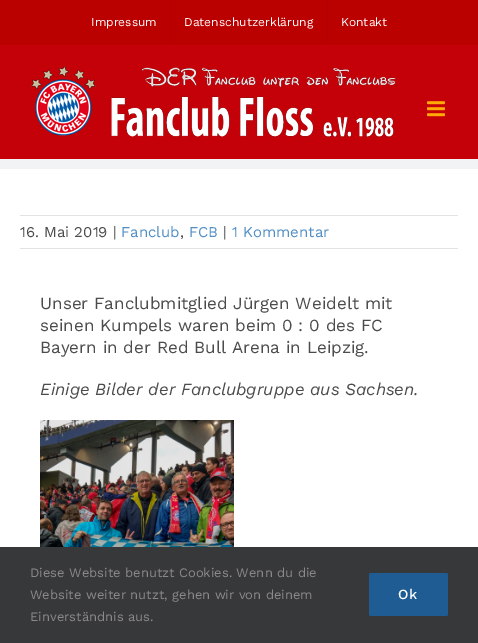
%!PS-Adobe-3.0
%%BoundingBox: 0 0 478 643
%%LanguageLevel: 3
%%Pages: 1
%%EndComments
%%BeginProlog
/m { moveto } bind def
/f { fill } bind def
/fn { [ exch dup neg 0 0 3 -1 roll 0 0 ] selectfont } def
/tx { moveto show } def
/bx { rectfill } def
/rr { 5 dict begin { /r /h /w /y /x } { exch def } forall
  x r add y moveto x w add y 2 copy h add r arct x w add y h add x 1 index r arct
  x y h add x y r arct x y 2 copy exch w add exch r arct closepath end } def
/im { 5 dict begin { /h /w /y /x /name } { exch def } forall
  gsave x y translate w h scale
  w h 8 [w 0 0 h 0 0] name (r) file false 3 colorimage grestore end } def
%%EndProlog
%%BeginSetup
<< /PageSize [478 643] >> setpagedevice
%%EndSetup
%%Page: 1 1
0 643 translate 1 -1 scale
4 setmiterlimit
0.949 0.953 0.961 setrgbcolor
0 0 478 643 bx
0.733 0 0 setrgbcolor
0 0 478 45 bx
/WorkSans-Regular 12 fn
1 setgray
(Impressum) 91 26 tx
0.69 0.004 0.031 setrgbcolor
170 0 1 44 bx
1 setgray
(Datenschutzerklärung) 184 26 tx
0.69 0.004 0.031 setrgbcolor
327 0 1 44 bx
1 setgray
(Kontakt) 341 26 tx
0.769 0.004 0.035 setrgbcolor
0 45 478 114 bx
(image0.raw) 31 66 365 71 im
(image1.raw) 427 101 18 16 im
1 setgray
0 169 478 378 bx
0.886 setgray
20 215 438 1 bx
20 248 438 1 bx
/WorkSans-Regular 15 fn
0.298 setgray
(16. Mai 2019 |) 20 237 tx
0.314 0.557 0.773 setrgbcolor
(Fanclub) 121 237 tx
0.298 setgray
(,) 180 237 tx
0.314 0.557 0.773 setrgbcolor
(FCB) 189 237 tx
0.298 setgray
(|) 223 237 tx
0.314 0.557 0.773 setrgbcolor
(1 Kommentar) 232 237 tx
/WorkSans-Regular 17 fn
0.298 setgray
(Unser Fanclubmitglied Jürgen Weidelt mit) 40 309 tx
(seinen Kumpels waren beim 0 : 0 des FC) 40 331 tx
(Bayern in der Red Bull Arena in Leipzig.) 40 353 tx
/WorkSans-Italic 17 fn
(Einige Bilder der Fanclubgruppe aus Sachsen.) 40 395 tx
(image2.raw) 40 420 194 127 im
0.212 0.22 0.224 setrgbcolor
0 547 478 96 bx
/WorkSans-Regular 13 fn
0.549 0.537 0.537 setrgbcolor
(Diese Website benutzt Cookies. Wenn du die) 30 577 tx
(Website weiter nutzt, gehen wir von deinem) 30 599 tx
(Einverständnis aus.) 30 621 tx
0.118 0.361 0.576 setrgbcolor
369 573 79 43 2 rr f
/WorkSans-Medium 14 fn
1 setgray
398 599 m 1 0 (Ok) ashow
showpage
%%EOF
